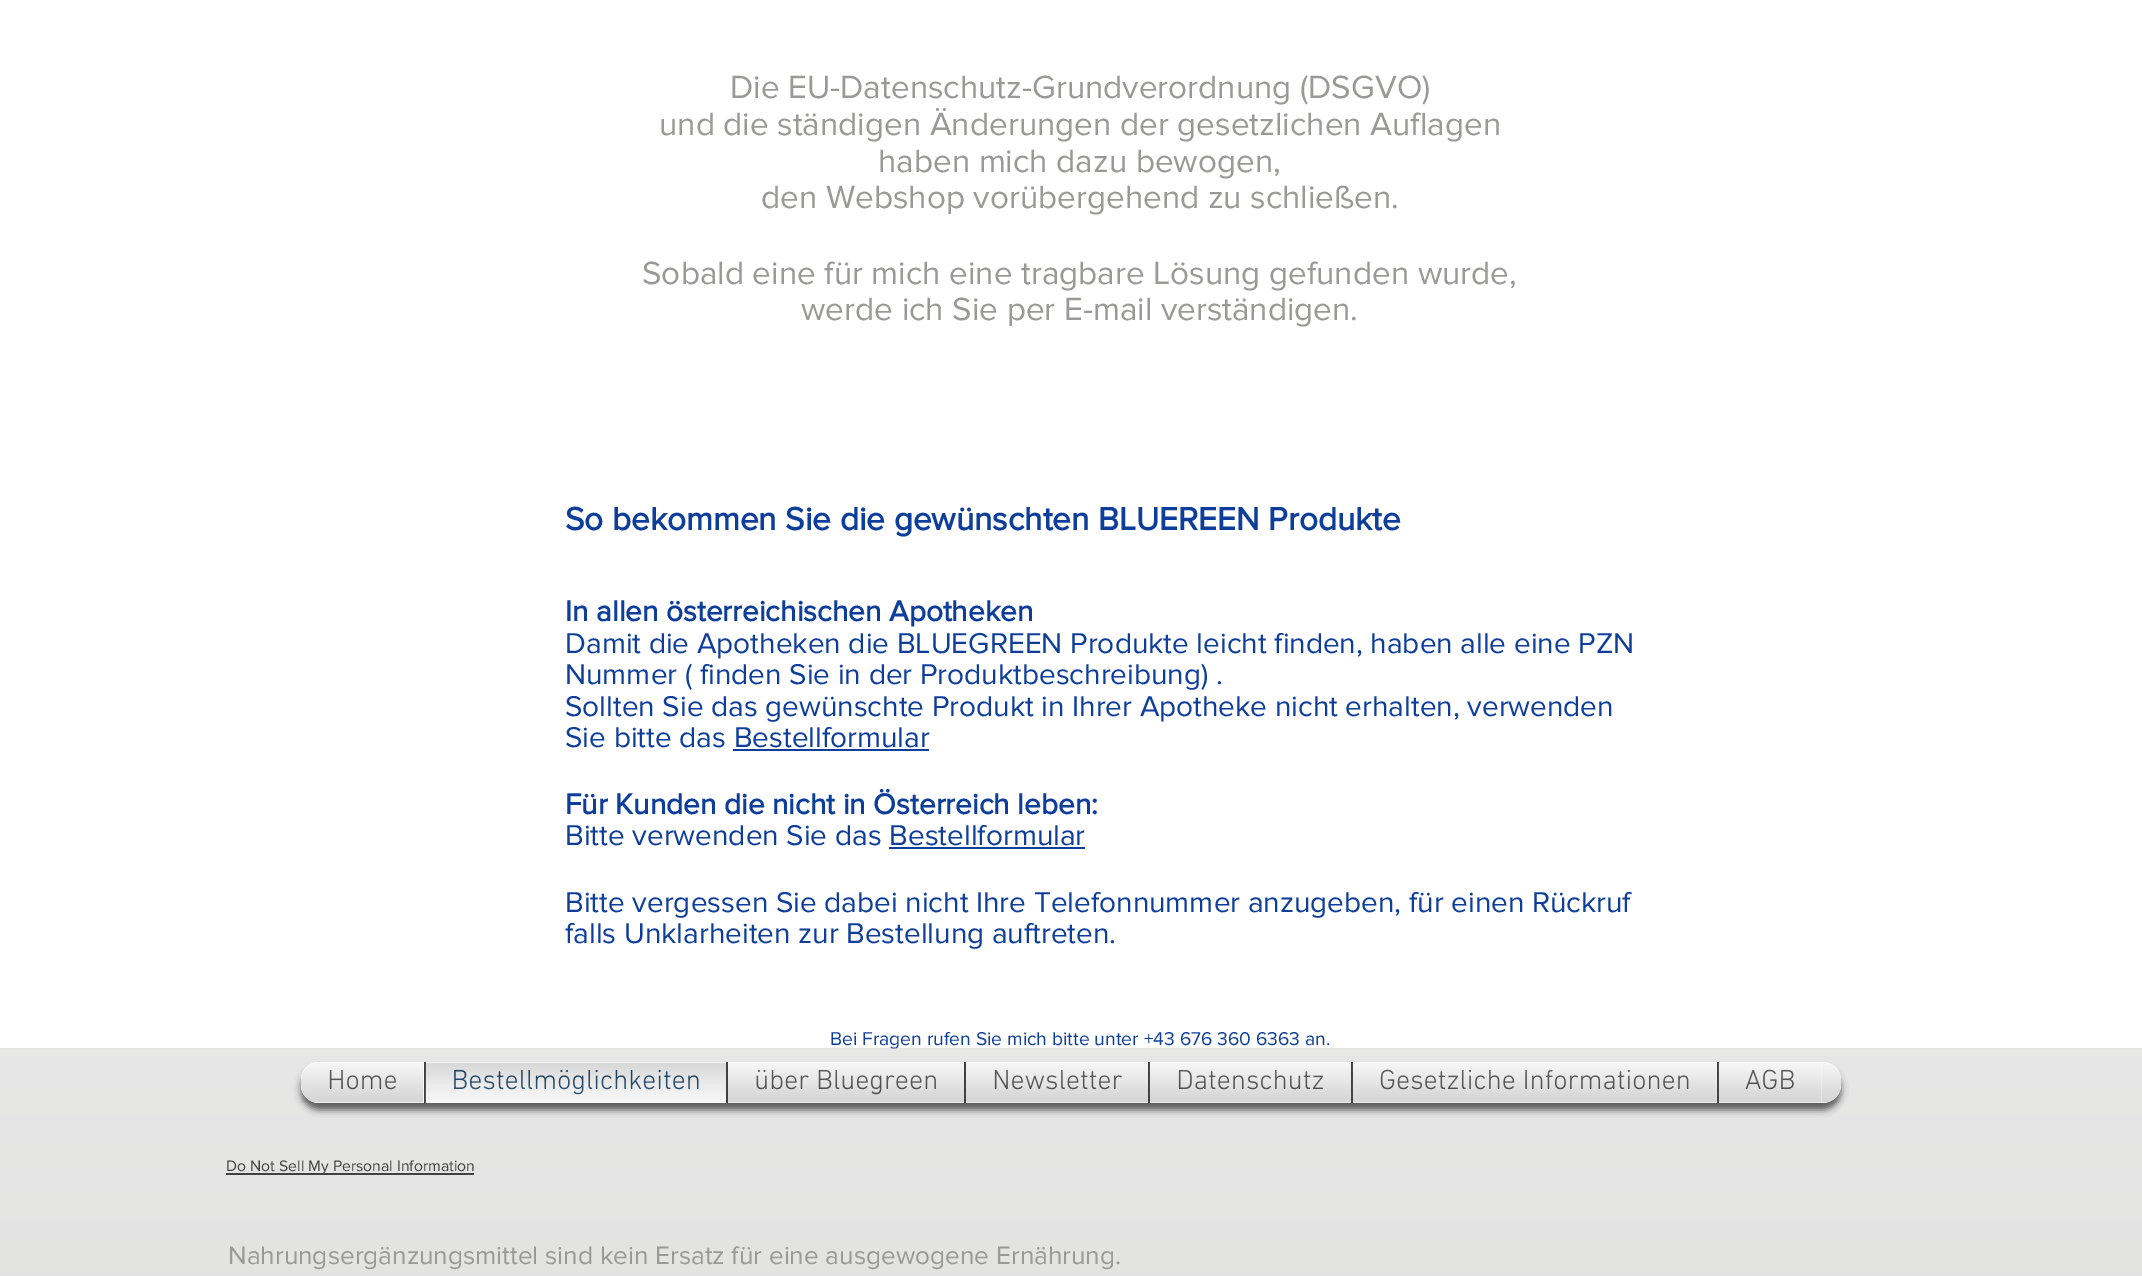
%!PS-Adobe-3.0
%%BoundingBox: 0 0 2142 1276
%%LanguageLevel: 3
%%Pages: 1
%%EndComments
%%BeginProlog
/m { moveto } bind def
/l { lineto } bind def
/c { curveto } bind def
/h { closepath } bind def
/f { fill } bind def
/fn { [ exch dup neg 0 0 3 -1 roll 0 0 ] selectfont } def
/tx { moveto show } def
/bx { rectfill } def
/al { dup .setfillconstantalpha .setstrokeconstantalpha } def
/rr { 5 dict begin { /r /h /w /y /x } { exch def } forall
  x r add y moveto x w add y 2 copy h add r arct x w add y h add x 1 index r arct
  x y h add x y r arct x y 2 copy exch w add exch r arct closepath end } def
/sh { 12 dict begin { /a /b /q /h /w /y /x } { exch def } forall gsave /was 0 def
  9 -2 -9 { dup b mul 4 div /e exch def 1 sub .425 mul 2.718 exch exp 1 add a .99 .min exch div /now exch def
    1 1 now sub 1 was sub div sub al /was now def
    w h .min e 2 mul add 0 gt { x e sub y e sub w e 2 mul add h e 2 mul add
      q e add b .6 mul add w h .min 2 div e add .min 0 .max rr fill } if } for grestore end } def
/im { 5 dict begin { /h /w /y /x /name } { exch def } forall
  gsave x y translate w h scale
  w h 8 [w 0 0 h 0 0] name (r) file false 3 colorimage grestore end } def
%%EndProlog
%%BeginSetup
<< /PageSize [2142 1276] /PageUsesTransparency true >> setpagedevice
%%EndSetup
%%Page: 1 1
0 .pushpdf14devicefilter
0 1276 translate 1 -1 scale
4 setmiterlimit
1 setgray
0 0 2142 1276 bx
/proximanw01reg-Regular 33.25 fn
0.6 0.6 0.592 setrgbcolor
(Die EU-Datenschutz-Grundverordnung \(DSGVO\)) 730 98 tx
(und die ständigen Änderungen der gesetzlichen Auflagen) 659 135 tx
(haben mich dazu bewogen,) 878 172 tx
(den Webshop vorübergehend zu schließen.) 761 208 tx
(Sobald eine für mich eine tragbare Lösung gefunden wurde,) 642 284 tx
(werde ich Sie per E-mail verständigen.) 801 320 tx
/proximanw01reg-Bold 33.25 fn
0.055 0.243 0.608 setrgbcolor
(So bekommen Sie die gewünschten BLUEREEN Produkte) 565 530 tx
/proximanw01reg-Bold 29.75 fn
(In allen österreichischen Apotheken) 565 621 tx
/proximanw01reg-Regular 29.75 fn
(Damit die Apotheken die BLUEGREEN Produkte leicht finden, haben alle eine PZN) 565 653 tx
(Nummer \( finden Sie in der Produktbeschreibung\) .) 565 684 tx
(Sollten Sie das gewünschte Produkt in Ihrer Apotheke nicht erhalten, verwenden) 565 716 tx
(Sie bitte das Bestellformular) 565 747 tx
733 749 196 2 bx
/proximanw01reg-Bold 29.75 fn
(Für Kunden die nicht in Österreich leben:) 565 814 tx
/proximanw01reg-Regular 29.75 fn
(Bitte verwenden Sie das Bestellformular) 565 845 tx
889 847 196 2 bx
(Bitte vergessen Sie dabei nicht Ihre Telefonnummer anzugeben, für einen Rückruf) 565 912 tx
(falls Unklarheiten zur Bestellung auftreten.) 565 943 tx
/proximanw01reg-Regular 19.25 fn
(Bei Fragen rufen Sie mich bitte unter +43 676 360 6363 an.) 830 1045 tx
0.32 al
0.6 0.6 0.592 setrgbcolor
0 1048 2142 228 bx
1 al
(image0.raw) 0 1048 2142 228 im
0 setgray
301 1069 1540 41 18 3.5 0.6 sh
1 setgray
301 1062 1540 41 18 rr f
(image1.raw) 301 1063 1540 40 im
319 1062 m 424 1062 l 424 1103 l 319 1103 l 309 1103 301 1095 301 1085 c 301 1080 l 301 1070 309 1062 319 1062 c h f
/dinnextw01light-Light 28 fn
0.255 setgray
(Home) 327 1089 tx
(image2.raw) 330 1070 66 20 im
(image3.raw) 301 1063 123 40 im
1 setgray
426 1063 300 40 bx
0.255 setgray
424 1062 2 41 bx
0 0.188 0.357 setrgbcolor
(Bestellmöglichkeiten) 452 1089 tx
(image4.raw) 425 1062 301 40 im
(image5.raw) 425 1063 301 40 im
1 setgray
728 1063 236 40 bx
0.255 setgray
726 1062 2 41 bx
(über Bluegreen) 754 1089 tx
(image6.raw) 756 1070 180 25 im
(image7.raw) 728 1063 236 40 im
1 setgray
966 1063 182 40 bx
0.255 setgray
964 1062 2 41 bx
(Newsletter) 992 1089 tx
(image8.raw) 995 1070 127 20 im
(image9.raw) 966 1063 182 40 im
1 setgray
1150 1063 201 40 bx
0.255 setgray
1148 1062 2 41 bx
(Datenschutz) 1176 1089 tx
(image10.raw) 1149 1063 174 34 im
(image11.raw) 1150 1063 201 40 im
1 setgray
1353 1063 364 40 bx
0.255 setgray
1351 1062 2 41 bx
(Gesetzliche Informationen) 1379 1089 tx
(image12.raw) 1352 1063 337 34 im
(image13.raw) 1353 1063 364 40 im
1 setgray
1719 1063 103 40 bx
0.255 setgray
1717 1062 2 41 bx
(AGB) 1745 1089 tx
(image14.raw) 1718 1062 76 40 im
(image15.raw) 1718 1063 104 40 im
226 1173 248 2 bx
/proximanw01reg-Regular 15.75 fn
(Do Not Sell My Personal Information) 226 1171 tx
/proximanw01reg-Regular 26.25 fn
0.6 0.6 0.592 setrgbcolor
(Nahrungsergänzungsmittel sind kein Ersatz für eine ausgewogene Ernährung.) 228 1264 tx
.poppdf14devicefilter showpage
%%EOF
